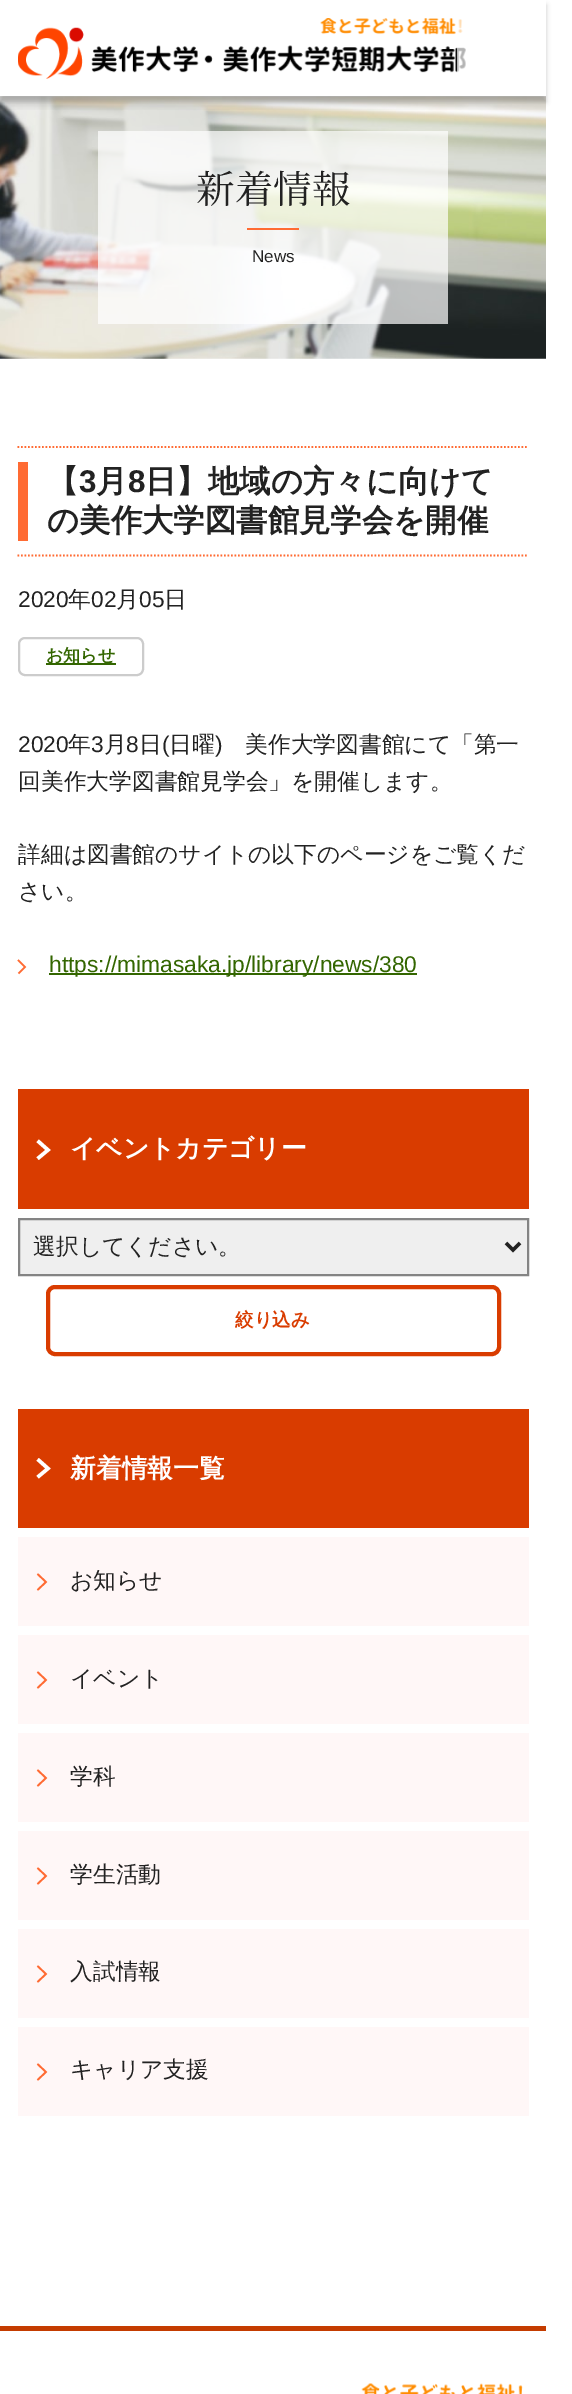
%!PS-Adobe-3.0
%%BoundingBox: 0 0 572 2394
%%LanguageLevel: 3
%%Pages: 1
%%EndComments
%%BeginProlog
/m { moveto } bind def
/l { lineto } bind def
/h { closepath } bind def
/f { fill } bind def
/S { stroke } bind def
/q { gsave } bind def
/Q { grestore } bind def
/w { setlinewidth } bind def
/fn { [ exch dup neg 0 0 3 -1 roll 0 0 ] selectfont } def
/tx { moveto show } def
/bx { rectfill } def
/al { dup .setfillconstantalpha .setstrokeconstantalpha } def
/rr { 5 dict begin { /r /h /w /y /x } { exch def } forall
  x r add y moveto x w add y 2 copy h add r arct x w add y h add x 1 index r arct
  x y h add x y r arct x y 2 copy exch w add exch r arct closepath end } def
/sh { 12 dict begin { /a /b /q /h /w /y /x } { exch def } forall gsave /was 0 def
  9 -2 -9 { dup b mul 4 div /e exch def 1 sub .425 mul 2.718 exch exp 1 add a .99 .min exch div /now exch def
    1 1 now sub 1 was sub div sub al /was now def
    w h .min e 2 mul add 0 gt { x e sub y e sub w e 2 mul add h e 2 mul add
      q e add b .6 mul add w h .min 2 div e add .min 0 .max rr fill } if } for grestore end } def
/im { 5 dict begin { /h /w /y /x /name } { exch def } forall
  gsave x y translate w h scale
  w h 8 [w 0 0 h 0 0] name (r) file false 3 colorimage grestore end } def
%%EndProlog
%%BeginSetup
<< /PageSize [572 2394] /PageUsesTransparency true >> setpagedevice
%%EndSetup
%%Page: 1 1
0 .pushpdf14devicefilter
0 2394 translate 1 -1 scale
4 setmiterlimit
1 setgray
0 0 572 2394 bx
(image1.raw) 0 96 546 263 im
(image2.raw) 0 96 546 14 im
q
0 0 m 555 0 l 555 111 l 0 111 l h 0 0 m 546 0 l 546 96 l 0 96 l h eoclip newpath
0 setgray
0 5 546 97 0 2.5 0.2 sh
Q
(image0.raw) 18 18 448 61 im
0.7 al
457 19 9 54 bx
98 131 350 193 bx
/NotoSerifJP-Regular 38.5 fn
1 al
0.133 setgray
(新着情報) 196 203 tx
1 0.42 0.2 setrgbcolor
247 228 52 2 bx
/LiberationSans-Regular 17 fn
0.133 setgray
(News) 252 262 tx
1 0.42 0.2 setrgbcolor
1.8 w
[1.75 1.75] 0 setdash
17.5 447 m 528.5 447 l S
17.5 555.5 m 528.5 555.5 l S
18 462 10 79 bx
/WenQuanYiZenHei-Bold 31.4 fn
0.133 setgray
(【) 47 492 tx
/LiberationSans-Bold 31.4 fn
(3) 79 492 tx
/WenQuanYiZenHei-Bold 31.4 fn
(月) 96 492 tx
/LiberationSans-Bold 31.4 fn
(8) 128 492 tx
/WenQuanYiZenHei-Bold 31.4 fn
(日】地域の方々に向けて) 145 492 tx
(の美作大学図書館見学会を開催) 47 531 tx
/LiberationSans-Regular 22.75 fn
(2020) 18 607 tx
/WenQuanYiZenHei-Medium 22.75 fn
(年) 68 607 tx
/LiberationSans-Regular 22.75 fn
(02) 91 607 tx
/WenQuanYiZenHei-Medium 22.75 fn
(月) 116 607 tx
/LiberationSans-Regular 22.75 fn
(05) 139 607 tx
/WenQuanYiZenHei-Medium 22.75 fn
(日) 164 607 tx
0.8 setgray
2 w
[] 0 setdash
19 638 124 37 6 rr S
0.2 0.4 0 setrgbcolor
46 663 70 2 bx
/WenQuanYiZenHei-Bold 17 fn
(お知らせ) 46 661 tx
/LiberationSans-Regular 22.75 fn
0.133 setgray
(2020) 18 752 tx
/WenQuanYiZenHei-Medium 22.75 fn
(年) 68 752 tx
/LiberationSans-Regular 22.75 fn
(3) 91 752 tx
/WenQuanYiZenHei-Medium 22.75 fn
(月) 104 752 tx
/LiberationSans-Regular 22.75 fn
(8) 126 752 tx
/WenQuanYiZenHei-Medium 22.75 fn
(日) 139 752 tx
/LiberationSans-Regular 22.75 fn
(\() 162 752 tx
/WenQuanYiZenHei-Medium 22.75 fn
(日曜) 169 752 tx
/LiberationSans-Regular 22.75 fn
(\)) 215 752 tx
/WenQuanYiZenHei-Medium 22.75 fn
(美作大学図書館にて「第一) 245 752 tx
(回美作大学図書館見学会」を開催します。) 18 789 tx
(詳細は図書館のサイトの以下のページをご覧くだ) 18 862 tx
(さい。) 18 899 tx
1 0.42 0.2 setrgbcolor
1.7 w
18 960 m 25 967 l 18.5 973.5 l S
0.2 0.4 0 setrgbcolor
49 973 368 2 bx
/LiberationSans-Regular 22.75 fn
(https://mimasaka.jp/library/news/380) 49 972 tx
0.851 0.235 0 setrgbcolor
18 1089 511 120 bx
1 setgray
3.5 w
2 setlinecap
39 1142 m 48 1150 l 39 1157.5 l S
/WenQuanYiZenHei-Bold 25.75 fn
(イベントカテゴリー) 70 1157 tx
0.937 setgray
19 1219 m 528 1219 l 528 1275 l 19 1275 l h q f Q
0.518 setgray
2 w
0 setlinecap
S
0.133 setgray
3.5 w
506 1243 m 513 1250 l 520 1243 l S
/WenQuanYiZenHei-Medium 22.75 fn
(選択してください。) 33 1254 tx
0.851 0.235 0 setrgbcolor
4 w
48 1287 451 67 7 rr S
/WenQuanYiZenHei-Bold 18.5 fn
(絞り込み) 235 1326 tx
18 1409 511 119 bx
1 setgray
3.5 w
2 setlinecap
39 1460.5 m 48 1468.5 l 39 1476 l S
/WenQuanYiZenHei-Bold 25.75 fn
(新着情報一覧) 70 1477 tx
1 0.969 0.969 setrgbcolor
18 1537 511 89 bx
1 0.42 0.2 setrgbcolor
1.7 w
0 setlinecap
37.5 1574 m 46 1582 l 37.5 1590 l S
/WenQuanYiZenHei-Medium 22.75 fn
0.133 setgray
(お知らせ) 70 1588 tx
1 0.969 0.969 setrgbcolor
18 1635 511 89 bx
1 0.42 0.2 setrgbcolor
37.5 1672 m 46 1680 l 37.5 1688 l S
0.133 setgray
(イベント) 70 1686 tx
1 0.969 0.969 setrgbcolor
18 1733 511 89 bx
1 0.42 0.2 setrgbcolor
37.5 1770 m 46 1778 l 37.5 1786 l S
0.133 setgray
(学科) 70 1784 tx
1 0.969 0.969 setrgbcolor
18 1831 511 89 bx
1 0.42 0.2 setrgbcolor
37.5 1868 m 46 1876 l 37.5 1884 l S
0.133 setgray
(学生活動) 70 1882 tx
1 0.969 0.969 setrgbcolor
18 1929 511 89 bx
1 0.42 0.2 setrgbcolor
37.5 1966 m 46 1974 l 37.5 1982 l S
0.133 setgray
(入試情報) 70 1979 tx
1 0.969 0.969 setrgbcolor
18 2027 511 89 bx
1 0.42 0.2 setrgbcolor
37.5 2064 m 46 2072 l 37.5 2080 l S
0.133 setgray
(キャリア支援) 70 2077 tx
0.769 0.235 0 setrgbcolor
0 2326 546 5 bx
(image3.raw) 361 2383 162 11 im
.poppdf14devicefilter showpage
%%EOF
